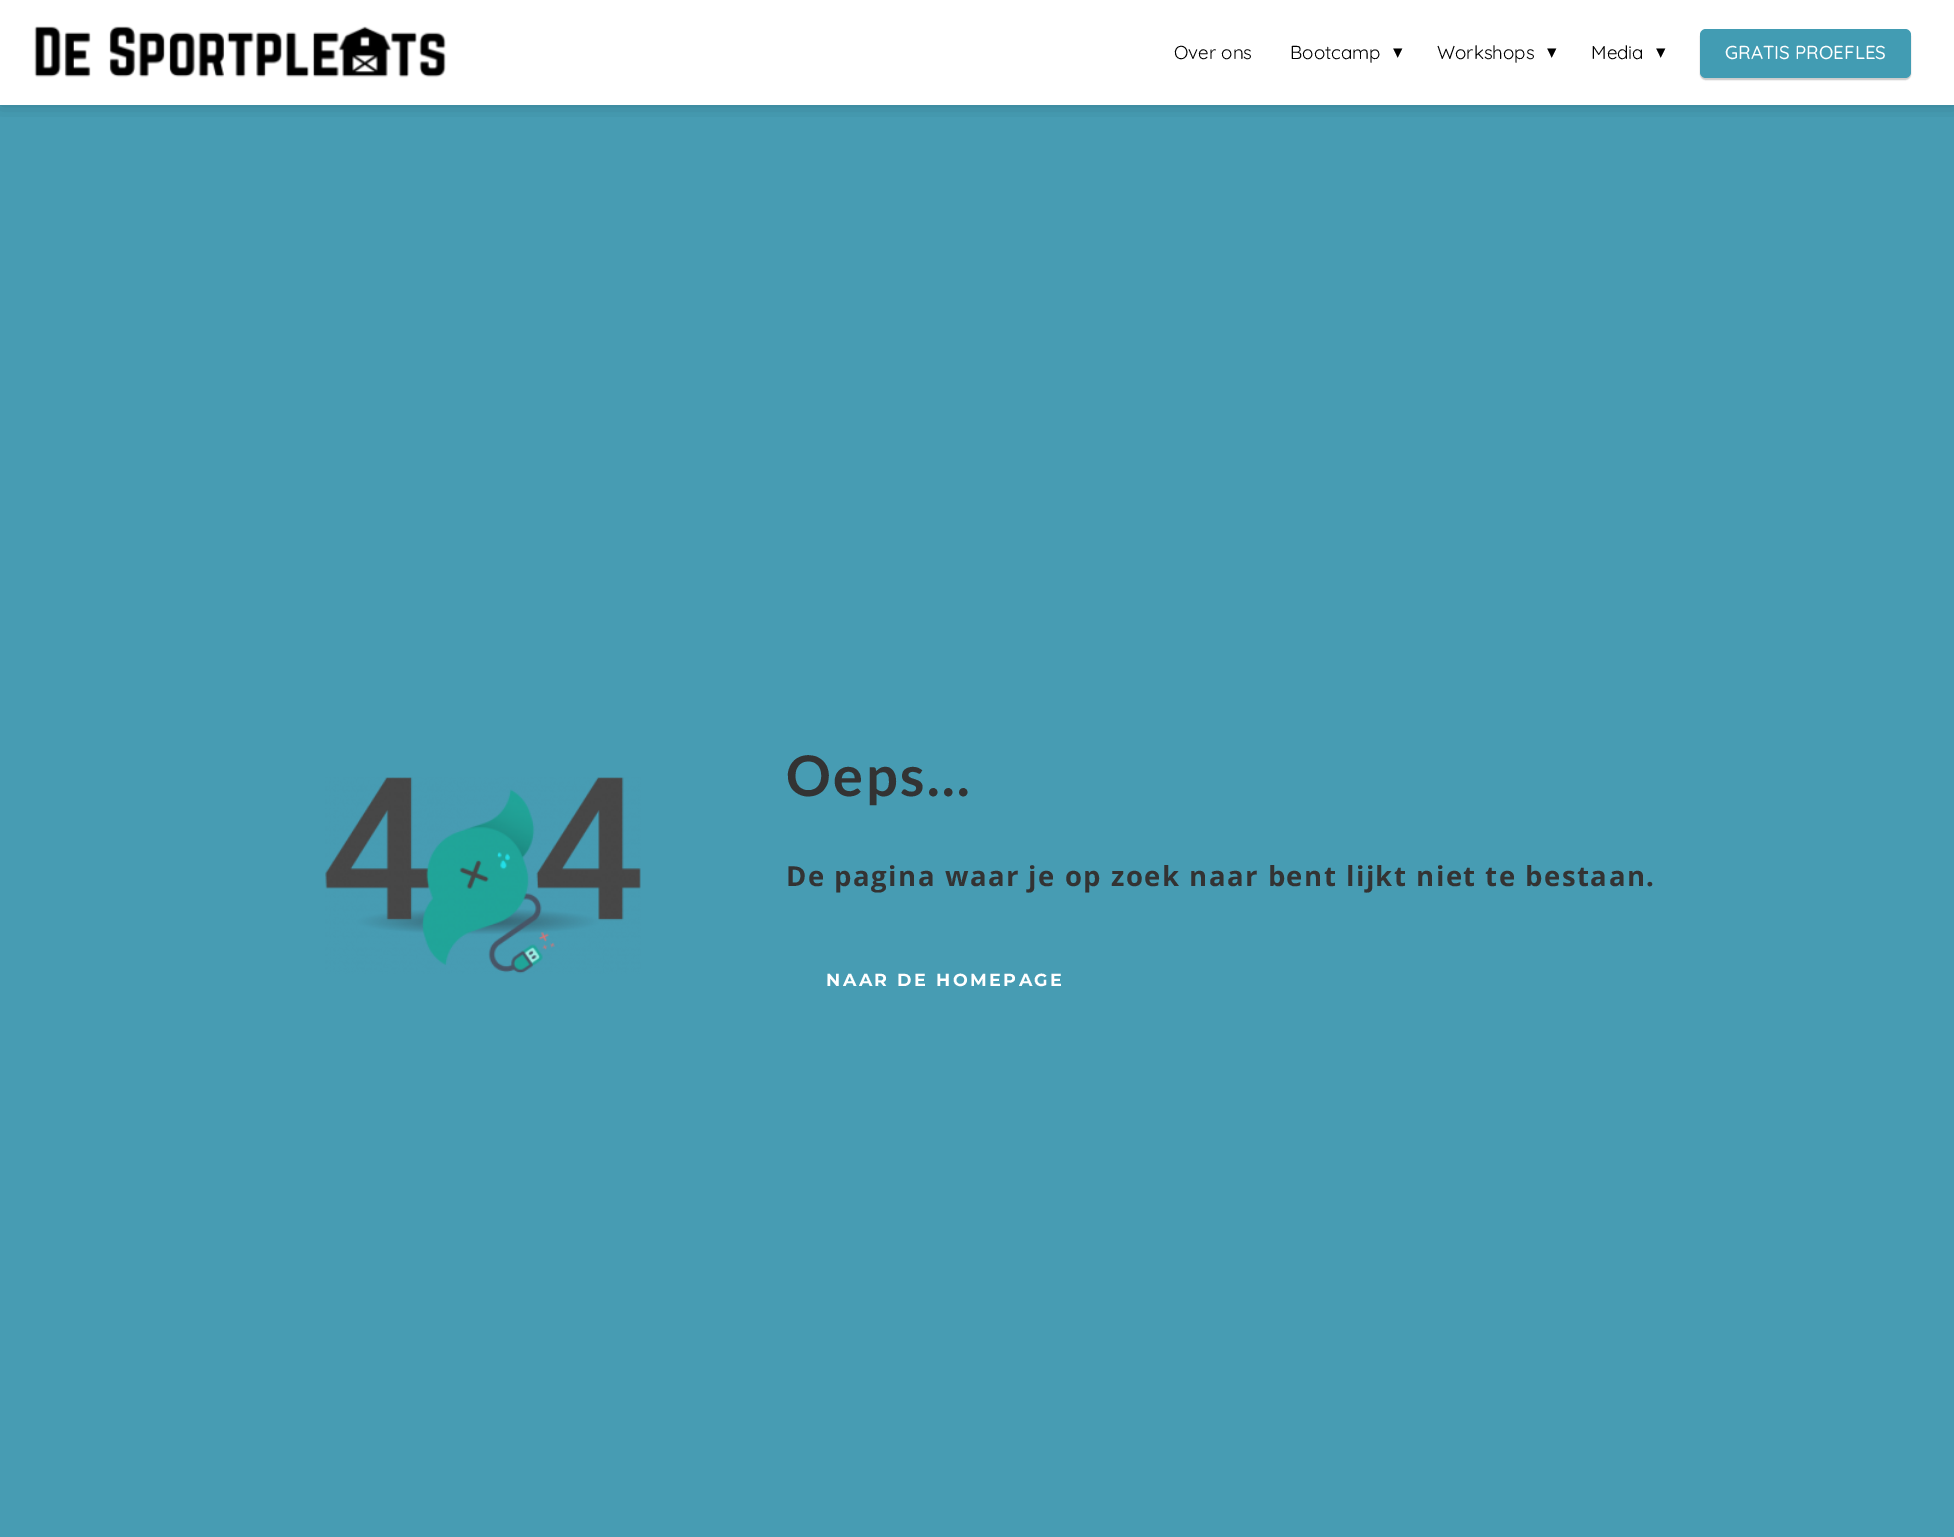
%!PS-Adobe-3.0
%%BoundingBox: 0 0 1954 1537
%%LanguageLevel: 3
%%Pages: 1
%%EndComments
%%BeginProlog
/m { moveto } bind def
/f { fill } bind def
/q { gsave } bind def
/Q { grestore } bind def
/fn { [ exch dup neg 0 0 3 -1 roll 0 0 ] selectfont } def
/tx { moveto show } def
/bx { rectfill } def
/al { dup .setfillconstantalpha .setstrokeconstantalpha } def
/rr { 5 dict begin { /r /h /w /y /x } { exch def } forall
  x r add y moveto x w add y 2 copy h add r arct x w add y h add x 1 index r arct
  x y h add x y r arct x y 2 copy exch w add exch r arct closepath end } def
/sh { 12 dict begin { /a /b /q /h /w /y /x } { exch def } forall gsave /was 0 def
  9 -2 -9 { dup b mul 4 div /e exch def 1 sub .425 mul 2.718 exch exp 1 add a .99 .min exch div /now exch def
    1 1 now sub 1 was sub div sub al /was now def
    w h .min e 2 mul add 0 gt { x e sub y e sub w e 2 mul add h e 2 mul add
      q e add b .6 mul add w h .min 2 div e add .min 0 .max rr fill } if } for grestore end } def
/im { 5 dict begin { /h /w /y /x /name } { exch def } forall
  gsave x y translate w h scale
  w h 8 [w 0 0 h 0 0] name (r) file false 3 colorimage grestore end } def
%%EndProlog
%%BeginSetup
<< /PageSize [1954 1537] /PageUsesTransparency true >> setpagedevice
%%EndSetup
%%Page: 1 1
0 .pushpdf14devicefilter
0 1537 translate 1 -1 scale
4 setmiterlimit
1 setgray
0 0 1954 1537 bx
0.278 0.612 0.702 setrgbcolor
0 105 1954 1432 bx
q
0 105 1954 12 rectclip
0 setgray
0 0 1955 105 0 9.5 0.2 sh
Q
(image0.raw) 34 26 412 52 im
/Quicksand-Regular 18.75 fn
0 setgray
(Over ons) 1174 59 tx
(Bootcamp) 1290 59 tx
/DejaVuSans-Regular 18.75 fn
(▾) 1393 58 tx
/Quicksand-Regular 18.75 fn
(Workshops) 1437 59 tx
/DejaVuSans-Regular 18.75 fn
(▾) 1547 58 tx
/Quicksand-Regular 18.75 fn
(Media) 1591 59 tx
/DejaVuSans-Regular 18.75 fn
(▾) 1656 58 tx
1700 31 211 49 6 0.5 0.2 sh
0.259 0.612 0.702 setrgbcolor
1700 29 211 49 6 rr f
/Quicksand-Medium 18.75 fn
1 setgray
(GRATIS PROEFLES) 1725 59 tx
(image1.raw) 325 777 316 197 im
/Lato-Bold 56 fn
0.2 setgray
786 796 m 2.5 0 (Oeps...) ashow
/OpenSans-Bold 27.5 fn
786 886 m 1.5 0 (De pagina waar je op zoek naar bent lijkt niet te bestaan.) ashow
/Montserrat-Thin 17.5 fn
1 setgray
826 986 m 2.5 0 (NAAR DE HOMEPAGE) ashow
.poppdf14devicefilter showpage
%%EOF
